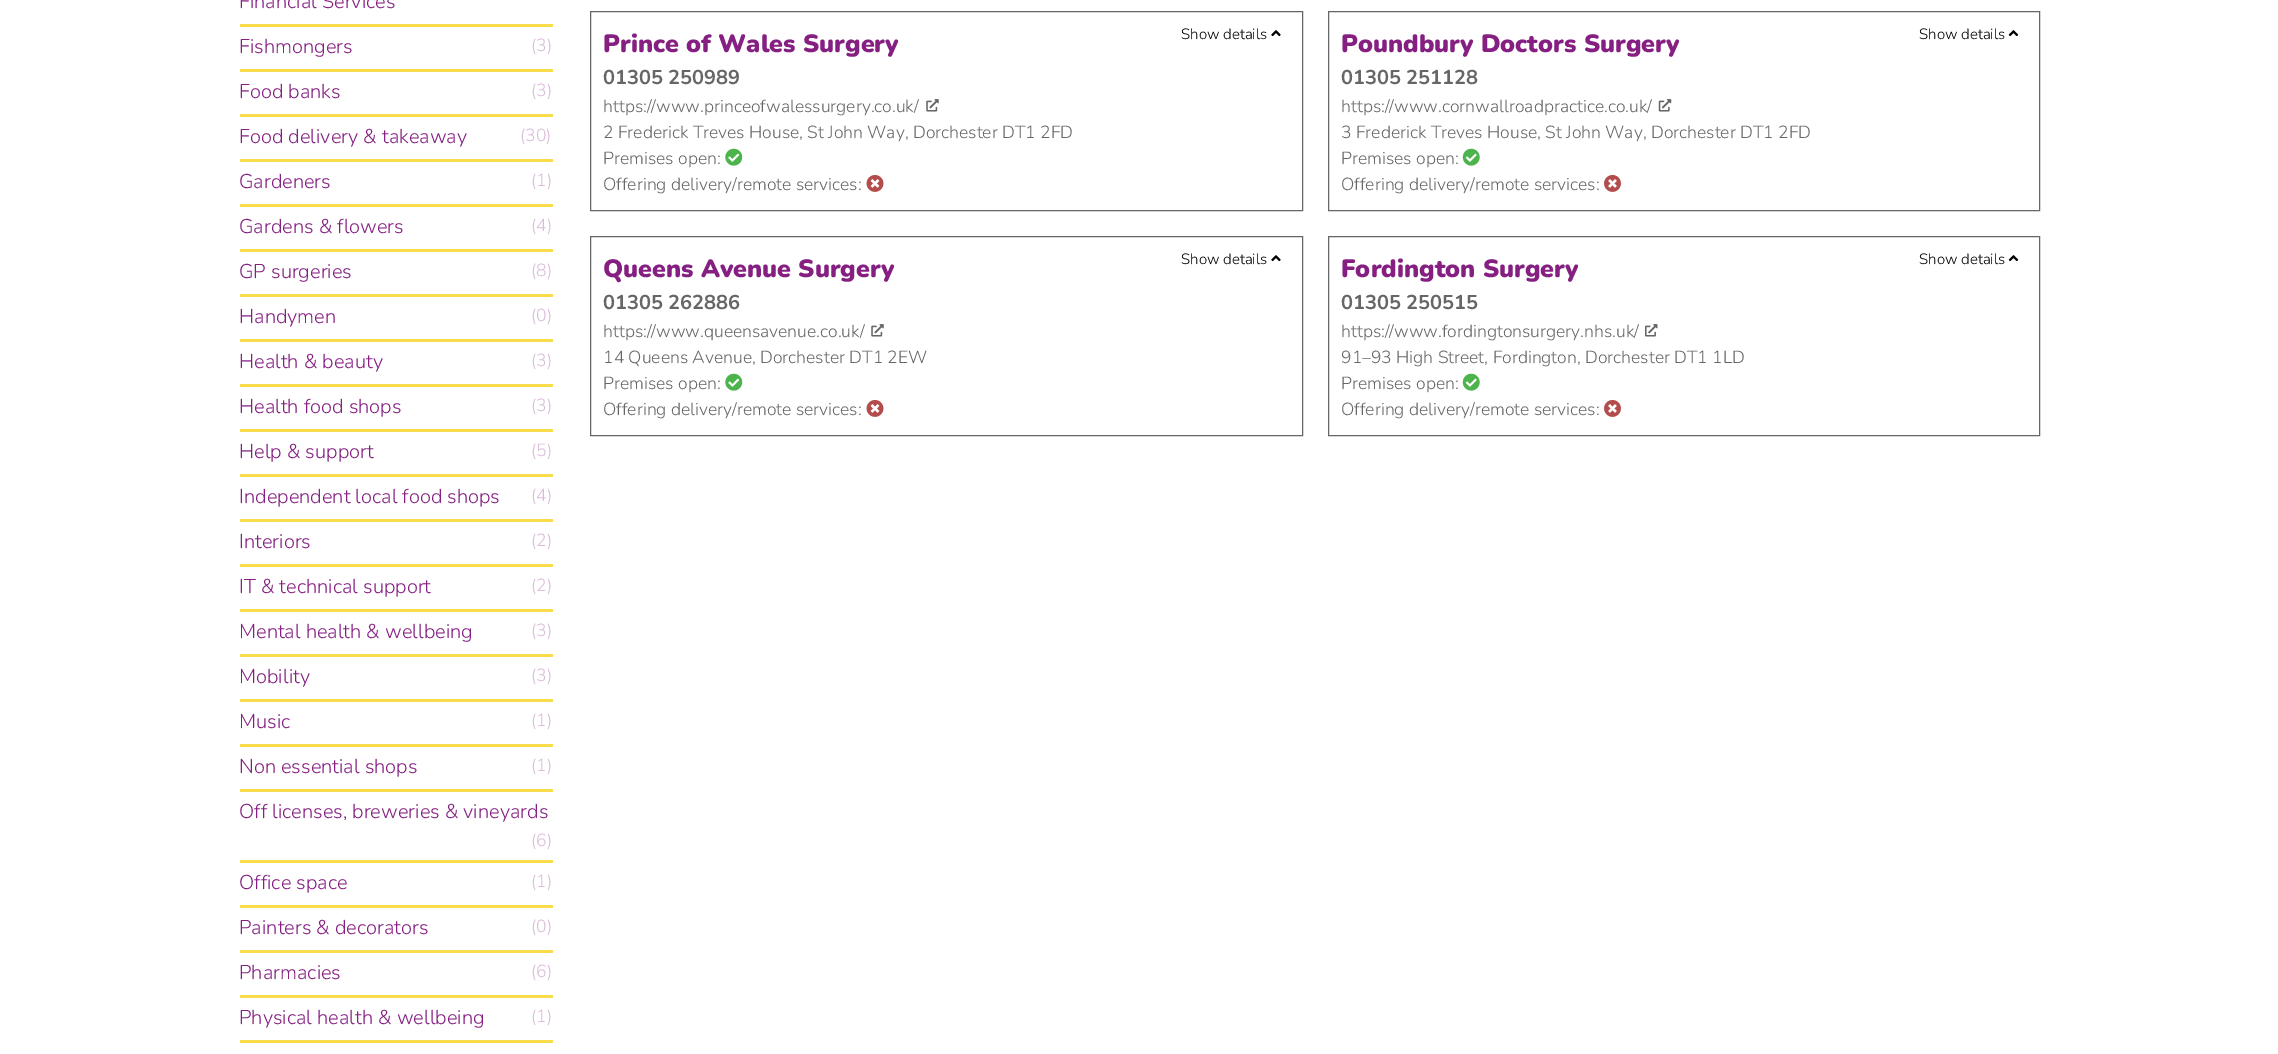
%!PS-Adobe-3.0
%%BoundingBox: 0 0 2278 1054
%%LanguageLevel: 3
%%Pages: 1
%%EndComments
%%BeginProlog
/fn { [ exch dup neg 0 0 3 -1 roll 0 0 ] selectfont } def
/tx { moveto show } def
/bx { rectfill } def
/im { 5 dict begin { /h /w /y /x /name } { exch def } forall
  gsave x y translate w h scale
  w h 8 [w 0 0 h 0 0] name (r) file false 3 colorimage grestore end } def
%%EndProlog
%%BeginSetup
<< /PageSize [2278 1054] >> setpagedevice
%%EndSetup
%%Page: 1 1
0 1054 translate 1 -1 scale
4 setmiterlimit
1 setgray
0 0 2278 1054 bx
0.976 0.863 0.298 setrgbcolor
240 24 313 3 bx
/Nunito-Light 20 fn
0.522 0.122 0.51 setrgbcolor
(Financial Services) 239 8 tx
0.976 0.863 0.298 setrgbcolor
240 69 313 3 bx
0.522 0.122 0.51 setrgbcolor
(Fishmongers) 239 53 tx
/Nunito-Light 17.5 fn
0.855 0.737 0.855 setrgbcolor
(\(3\)) 531 51 tx
0.976 0.863 0.298 setrgbcolor
240 114 313 3 bx
/Nunito-Light 20 fn
0.522 0.122 0.51 setrgbcolor
(Food banks) 239 98 tx
/Nunito-Light 17.5 fn
0.855 0.737 0.855 setrgbcolor
(\(3\)) 531 96 tx
0.976 0.863 0.298 setrgbcolor
240 159 313 3 bx
/Nunito-Light 20 fn
0.522 0.122 0.51 setrgbcolor
(Food delivery & takeaway) 239 143 tx
/Nunito-Light 17.5 fn
0.855 0.737 0.855 setrgbcolor
(\(30\)) 520 141 tx
0.976 0.863 0.298 setrgbcolor
240 204 313 3 bx
/Nunito-Light 20 fn
0.522 0.122 0.51 setrgbcolor
(Gardeners) 239 188 tx
/Nunito-Light 17.5 fn
0.855 0.737 0.855 setrgbcolor
(\(1\)) 531 186 tx
0.976 0.863 0.298 setrgbcolor
240 249 313 3 bx
/Nunito-Light 20 fn
0.522 0.122 0.51 setrgbcolor
(Gardens & flowers) 239 233 tx
/Nunito-Light 17.5 fn
0.855 0.737 0.855 setrgbcolor
(\(4\)) 531 231 tx
0.976 0.863 0.298 setrgbcolor
240 294 313 3 bx
/Nunito-Light 20 fn
0.522 0.122 0.51 setrgbcolor
(GP surgeries) 239 278 tx
/Nunito-Light 17.5 fn
0.855 0.737 0.855 setrgbcolor
(\(8\)) 531 276 tx
0.976 0.863 0.298 setrgbcolor
240 339 313 3 bx
/Nunito-Light 20 fn
0.522 0.122 0.51 setrgbcolor
(Handymen) 239 323 tx
/Nunito-Light 17.5 fn
0.855 0.737 0.855 setrgbcolor
(\(0\)) 531 321 tx
0.976 0.863 0.298 setrgbcolor
240 384 313 3 bx
/Nunito-Light 20 fn
0.522 0.122 0.51 setrgbcolor
(Health & beauty) 239 368 tx
/Nunito-Light 17.5 fn
0.855 0.737 0.855 setrgbcolor
(\(3\)) 531 366 tx
0.976 0.863 0.298 setrgbcolor
240 429 313 3 bx
/Nunito-Light 20 fn
0.522 0.122 0.51 setrgbcolor
(Health food shops) 239 413 tx
/Nunito-Light 17.5 fn
0.855 0.737 0.855 setrgbcolor
(\(3\)) 531 411 tx
0.976 0.863 0.298 setrgbcolor
240 474 313 3 bx
/Nunito-Light 20 fn
0.522 0.122 0.51 setrgbcolor
(Help & support) 239 458 tx
/Nunito-Light 17.5 fn
0.855 0.737 0.855 setrgbcolor
(\(5\)) 531 456 tx
0.976 0.863 0.298 setrgbcolor
240 519 313 3 bx
/Nunito-Light 20 fn
0.522 0.122 0.51 setrgbcolor
(Independent local food shops) 239 503 tx
/Nunito-Light 17.5 fn
0.855 0.737 0.855 setrgbcolor
(\(4\)) 531 501 tx
0.976 0.863 0.298 setrgbcolor
240 564 313 3 bx
/Nunito-Light 20 fn
0.522 0.122 0.51 setrgbcolor
(Interiors) 239 548 tx
/Nunito-Light 17.5 fn
0.855 0.737 0.855 setrgbcolor
(\(2\)) 531 546 tx
0.976 0.863 0.298 setrgbcolor
240 609 313 3 bx
/Nunito-Light 20 fn
0.522 0.122 0.51 setrgbcolor
(IT & technical support) 239 593 tx
/Nunito-Light 17.5 fn
0.855 0.737 0.855 setrgbcolor
(\(2\)) 531 591 tx
0.976 0.863 0.298 setrgbcolor
240 654 313 3 bx
/Nunito-Light 20 fn
0.522 0.122 0.51 setrgbcolor
(Mental health & wellbeing) 239 638 tx
/Nunito-Light 17.5 fn
0.855 0.737 0.855 setrgbcolor
(\(3\)) 531 636 tx
0.976 0.863 0.298 setrgbcolor
240 699 313 3 bx
/Nunito-Light 20 fn
0.522 0.122 0.51 setrgbcolor
(Mobility) 239 683 tx
/Nunito-Light 17.5 fn
0.855 0.737 0.855 setrgbcolor
(\(3\)) 531 681 tx
0.976 0.863 0.298 setrgbcolor
240 744 313 3 bx
/Nunito-Light 20 fn
0.522 0.122 0.51 setrgbcolor
(Music) 239 728 tx
/Nunito-Light 17.5 fn
0.855 0.737 0.855 setrgbcolor
(\(1\)) 531 726 tx
0.976 0.863 0.298 setrgbcolor
240 789 313 3 bx
/Nunito-Light 20 fn
0.522 0.122 0.51 setrgbcolor
(Non essential shops) 239 773 tx
/Nunito-Light 17.5 fn
0.855 0.737 0.855 setrgbcolor
(\(1\)) 531 771 tx
0.976 0.863 0.298 setrgbcolor
240 860 313 3 bx
/Nunito-Light 20 fn
0.522 0.122 0.51 setrgbcolor
(Off licenses, breweries & vineyards) 239 818 tx
/Nunito-Light 17.5 fn
0.855 0.737 0.855 setrgbcolor
(\(6\)) 531 846 tx
0.976 0.863 0.298 setrgbcolor
240 905 313 3 bx
/Nunito-Light 20 fn
0.522 0.122 0.51 setrgbcolor
(Office space) 239 889 tx
/Nunito-Light 17.5 fn
0.855 0.737 0.855 setrgbcolor
(\(1\)) 531 887 tx
0.976 0.863 0.298 setrgbcolor
240 950 313 3 bx
/Nunito-Light 20 fn
0.522 0.122 0.51 setrgbcolor
(Painters & decorators) 239 934 tx
/Nunito-Light 17.5 fn
0.855 0.737 0.855 setrgbcolor
(\(0\)) 531 932 tx
0.976 0.863 0.298 setrgbcolor
240 995 313 3 bx
/Nunito-Light 20 fn
0.522 0.122 0.51 setrgbcolor
(Pharmacies) 239 979 tx
/Nunito-Light 17.5 fn
0.855 0.737 0.855 setrgbcolor
(\(6\)) 531 977 tx
0.976 0.863 0.298 setrgbcolor
240 1040 313 3 bx
/Nunito-Light 20 fn
0.522 0.122 0.51 setrgbcolor
(Physical health & wellbeing) 239 1024 tx
/Nunito-Light 17.5 fn
0.855 0.737 0.855 setrgbcolor
(\(1\)) 531 1022 tx
0.4 setgray
590.5 11.5 712 199 rectstroke
/Nunito-Black 25 fn
0.522 0.122 0.51 setrgbcolor
(Prince of Wales Surgery) 603 52 tx
/Nunito-Light 15 fn
0 setgray
(Show details) 1181 39 tx
(image0.raw) 1271 30 10 7 im
/Nunito-Bold 20 fn
0.4 setgray
(01305 250989) 603 84 tx
/Nunito-Light 17.5 fn
(https://www.princeofwalessurgery.co.uk/) 603 112 tx
(image1.raw) 926 99 13 13 im
(2 Frederick Treves House, St John Way, Dorchester DT1 2FD) 603 138 tx
(Premises open:) 603 164 tx
(image2.raw) 725 148 18 18 im
(Offering delivery/remote services:) 603 190 tx
(image3.raw) 866 175 18 17 im
1328.5 11.5 711 199 rectstroke
/Nunito-Black 25 fn
0.522 0.122 0.51 setrgbcolor
(Poundbury Doctors Surgery) 1341 52 tx
/Nunito-Light 15 fn
0 setgray
(Show details) 1919 39 tx
(image4.raw) 2008 30 11 7 im
/Nunito-Bold 20 fn
0.4 setgray
(01305 251128) 1341 84 tx
/Nunito-Light 17.5 fn
(https://www.cornwallroadpractice.co.uk/) 1341 112 tx
(image5.raw) 1658 99 14 13 im
(3 Frederick Treves House, St John Way, Dorchester DT1 2FD) 1341 138 tx
(Premises open:) 1341 164 tx
(image6.raw) 1462 148 18 18 im
(Offering delivery/remote services:) 1341 190 tx
(image7.raw) 1604 175 17 17 im
590.5 236.5 712 199 rectstroke
/Nunito-Black 25 fn
0.522 0.122 0.51 setrgbcolor
(Queens Avenue Surgery) 603 277 tx
/Nunito-Light 15 fn
0 setgray
(Show details) 1181 264 tx
(image0.raw) 1271 255 10 7 im
/Nunito-Bold 20 fn
0.4 setgray
(01305 262886) 603 309 tx
/Nunito-Light 17.5 fn
(https://www.queensavenue.co.uk/) 603 337 tx
(image1.raw) 871 324 13 13 im
(14 Queens Avenue, Dorchester DT1 2EW) 603 363 tx
(Premises open:) 603 389 tx
(image2.raw) 725 373 18 18 im
(Offering delivery/remote services:) 603 415 tx
(image3.raw) 866 400 18 17 im
1328.5 236.5 711 199 rectstroke
/Nunito-Black 25 fn
0.522 0.122 0.51 setrgbcolor
(Fordington Surgery) 1341 277 tx
/Nunito-Light 15 fn
0 setgray
(Show details) 1919 264 tx
(image4.raw) 2008 255 11 7 im
/Nunito-Bold 20 fn
0.4 setgray
(01305 250515) 1341 309 tx
/Nunito-Light 17.5 fn
(https://www.fordingtonsurgery.nhs.uk/) 1341 337 tx
(image8.raw) 1645 324 13 13 im
(91–93 High Street, Fordington, Dorchester DT1 1LD) 1341 363 tx
(Premises open:) 1341 389 tx
(image6.raw) 1462 373 18 18 im
(Offering delivery/remote services:) 1341 415 tx
(image7.raw) 1604 400 17 17 im
showpage
%%EOF
